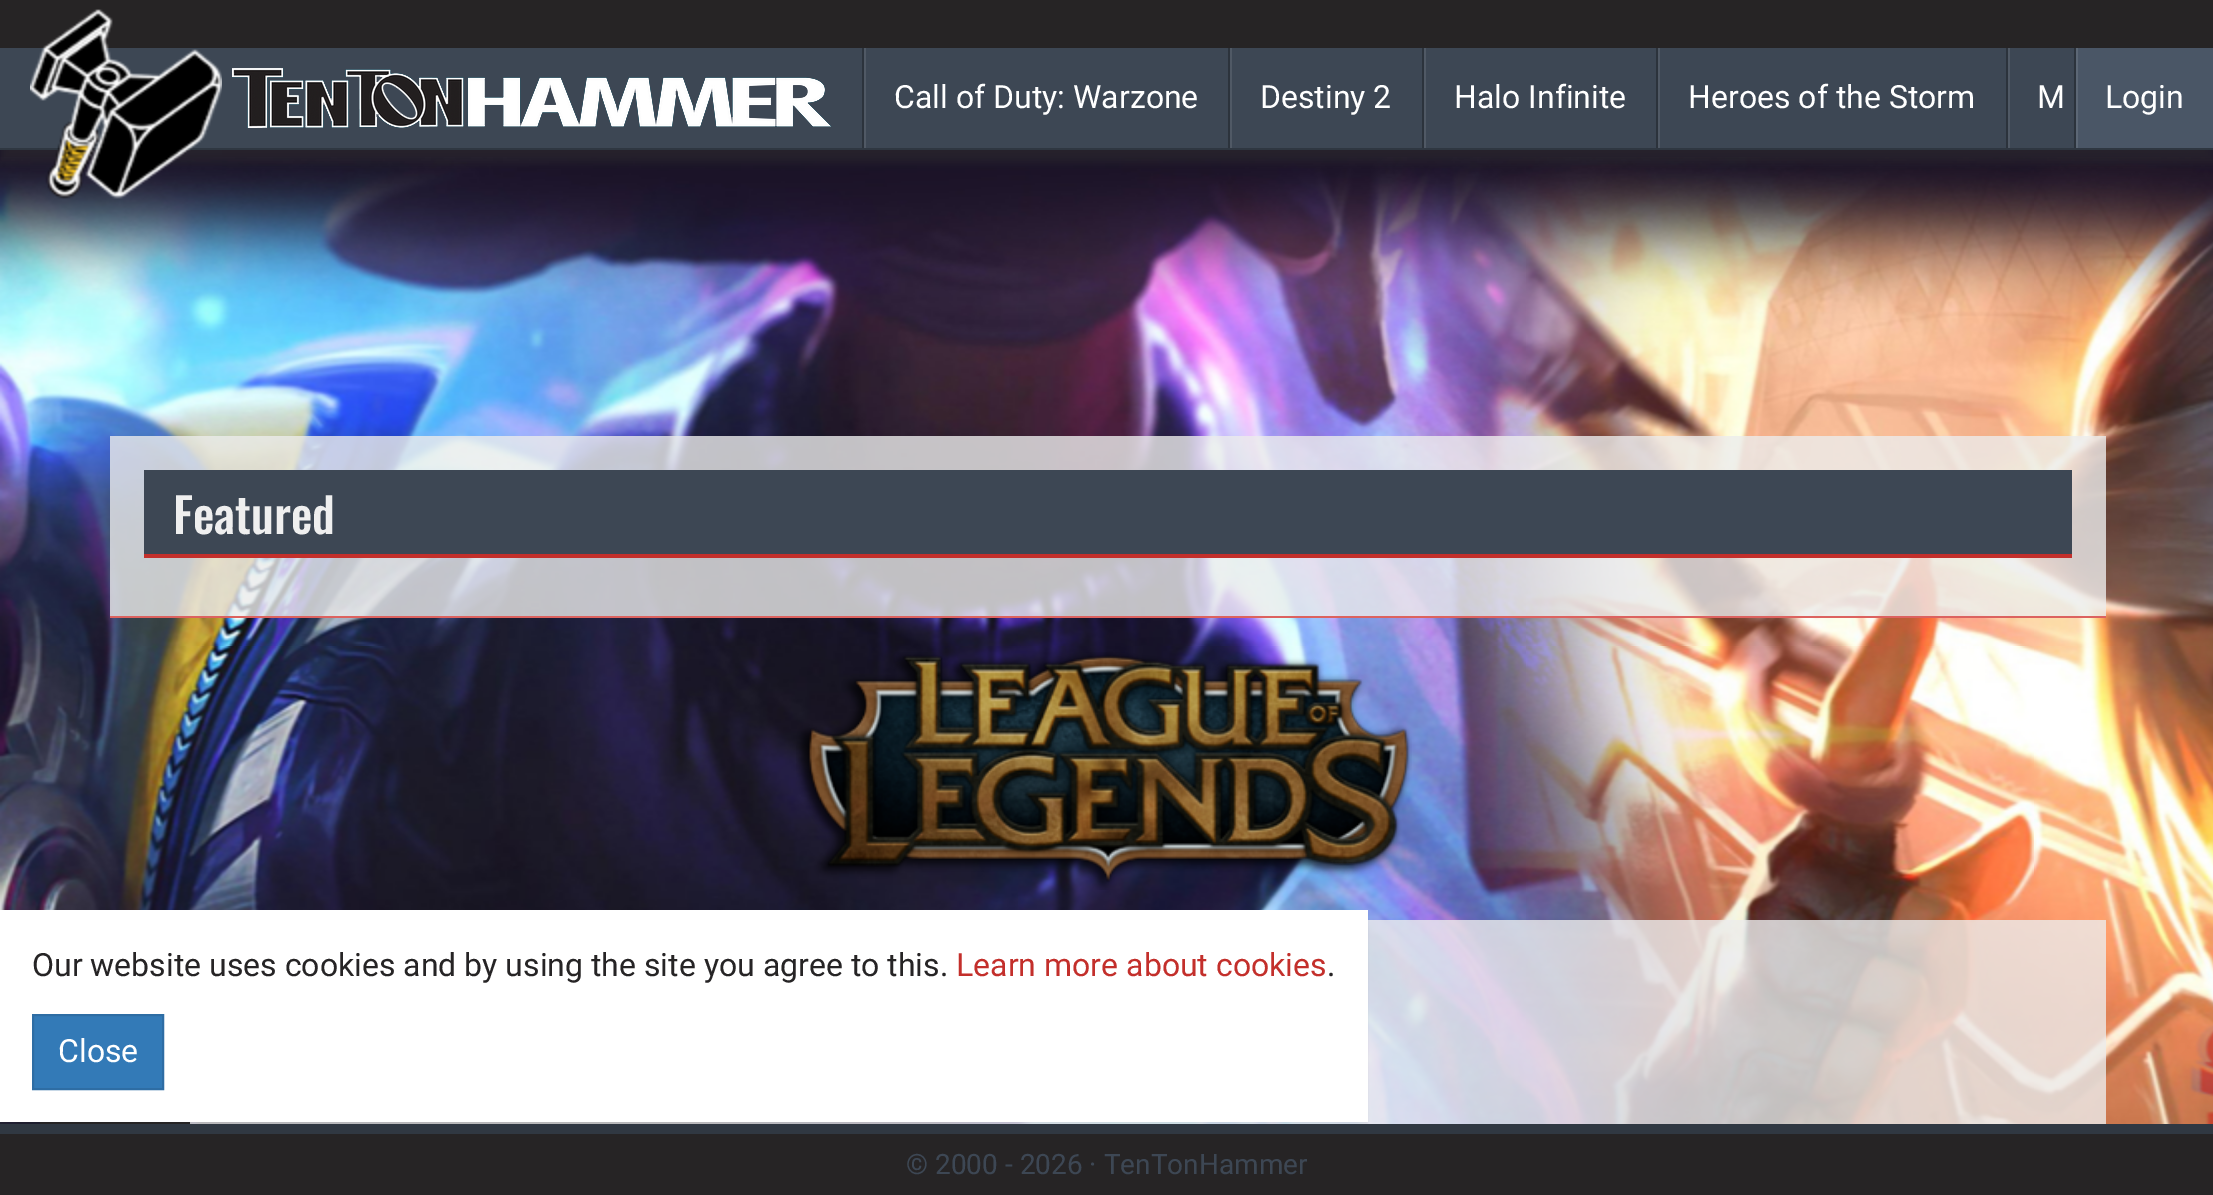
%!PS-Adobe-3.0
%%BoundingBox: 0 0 2213 1195
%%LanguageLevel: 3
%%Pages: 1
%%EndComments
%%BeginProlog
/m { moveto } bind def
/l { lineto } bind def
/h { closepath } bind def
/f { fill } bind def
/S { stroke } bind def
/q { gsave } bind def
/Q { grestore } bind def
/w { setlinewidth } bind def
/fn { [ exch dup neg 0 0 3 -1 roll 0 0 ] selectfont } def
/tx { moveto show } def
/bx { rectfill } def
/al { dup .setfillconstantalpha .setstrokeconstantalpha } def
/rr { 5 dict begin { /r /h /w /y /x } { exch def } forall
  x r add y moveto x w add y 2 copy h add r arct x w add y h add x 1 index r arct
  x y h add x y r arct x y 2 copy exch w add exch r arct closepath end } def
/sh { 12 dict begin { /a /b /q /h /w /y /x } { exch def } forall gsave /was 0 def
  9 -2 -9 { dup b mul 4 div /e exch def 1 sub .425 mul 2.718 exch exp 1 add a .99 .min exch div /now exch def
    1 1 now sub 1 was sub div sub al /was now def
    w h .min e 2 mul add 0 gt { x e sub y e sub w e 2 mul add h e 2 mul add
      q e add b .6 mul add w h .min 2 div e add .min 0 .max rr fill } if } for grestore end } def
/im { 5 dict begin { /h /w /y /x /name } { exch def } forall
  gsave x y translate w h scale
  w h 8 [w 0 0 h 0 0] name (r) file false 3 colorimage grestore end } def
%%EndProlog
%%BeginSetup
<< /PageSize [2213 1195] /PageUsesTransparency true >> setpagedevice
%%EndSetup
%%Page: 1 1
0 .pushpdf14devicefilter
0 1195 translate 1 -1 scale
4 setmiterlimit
0.102 0.071 0.149 setrgbcolor
0 0 2213 1195 bx
(image2.raw) 0 157 2213 967 im
0.196 setgray
0 12 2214 150 0 5 0.5 sh
0.239 0.278 0.329 setrgbcolor
0 48 2074 100 bx
0.184 0.216 0.255 setrgbcolor
0 148 2213 2 bx
0.149 0.141 0.145 setrgbcolor
0 0 2213 48 bx
(image0.raw) 30 9 192 190 im
(image1.raw) 232 68 600 60 im
0.314 0.349 0.396 setrgbcolor
864 48 2 100 bx
0.173 0.2 0.235 setrgbcolor
862 48 2 100 bx
/Roboto-Regular 32 fn
1 setgray
(Call of Duty: Warzone) 894 108 tx
0.314 0.349 0.396 setrgbcolor
1230 48 2 100 bx
0.173 0.2 0.235 setrgbcolor
1228 48 2 100 bx
1 setgray
(Destiny 2) 1260 108 tx
0.314 0.349 0.396 setrgbcolor
1424 48 2 100 bx
0.173 0.2 0.235 setrgbcolor
1422 48 2 100 bx
1 setgray
(Halo Infinite) 1454 108 tx
0.314 0.349 0.396 setrgbcolor
1658 48 2 100 bx
0.173 0.2 0.235 setrgbcolor
1656 48 2 100 bx
1 setgray
(Heroes of the Storm) 1688 108 tx
0.314 0.349 0.396 setrgbcolor
2008 48 2 100 bx
0.173 0.2 0.235 setrgbcolor
2006 48 2 100 bx
1 setgray
(M) 2037 108 tx
0.29 0.337 0.4 setrgbcolor
2078 48 135 100 bx
0.361 0.404 0.459 setrgbcolor
2076 48 2 100 bx
0.173 0.2 0.235 setrgbcolor
2074 48 2 100 bx
1 setgray
(Login) 2105 108 tx
0.8 al
0.925 setgray
110 436 1996 180 bx
1 al
0.863 0.384 0.373 setrgbcolor
110 616 1996 2 bx
0.239 0.278 0.329 setrgbcolor
144 470 1928 84 bx
0.765 0.184 0.169 setrgbcolor
144 554 1928 4 bx
/Oswald-Medium 48 fn
0.937 setgray
(Featured) 173 534 tx
(image3.raw) 796 652 616 238 im
0.8 al
0.925 setgray
190 920 1916 204 bx
1 al
0.188 0.22 0.259 setrgbcolor
0 1124 2213 10 bx
0.149 0.141 0.145 setrgbcolor
40 1122 150 2 bx
0 setgray
0 912 1368 212 0 1 0.05 sh
1 setgray
0 910 1368 212 bx
/Roboto-Regular 32 fn
0.149 0.141 0.145 setrgbcolor
(Our website uses cookies and by using the site you agree to this.) 32 976 tx
0.765 0.184 0.169 setrgbcolor
(Learn more about cookies) 956 976 tx
0.149 0.141 0.145 setrgbcolor
(.) 1327 976 tx
0.2 0.478 0.718 setrgbcolor
33 1015 m 163 1015 l 163 1089 l 33 1089 l h q f Q
0.18 0.427 0.643 setrgbcolor
2 w
S
1 setgray
(Close) 58 1062 tx
0.149 0.141 0.145 setrgbcolor
0 1134 2213 61 bx
/Roboto-Regular 28 fn
0.239 0.278 0.329 setrgbcolor
(© 2000 - 2026 · TenTonHammer) 906 1174 tx
.poppdf14devicefilter showpage
%%EOF
